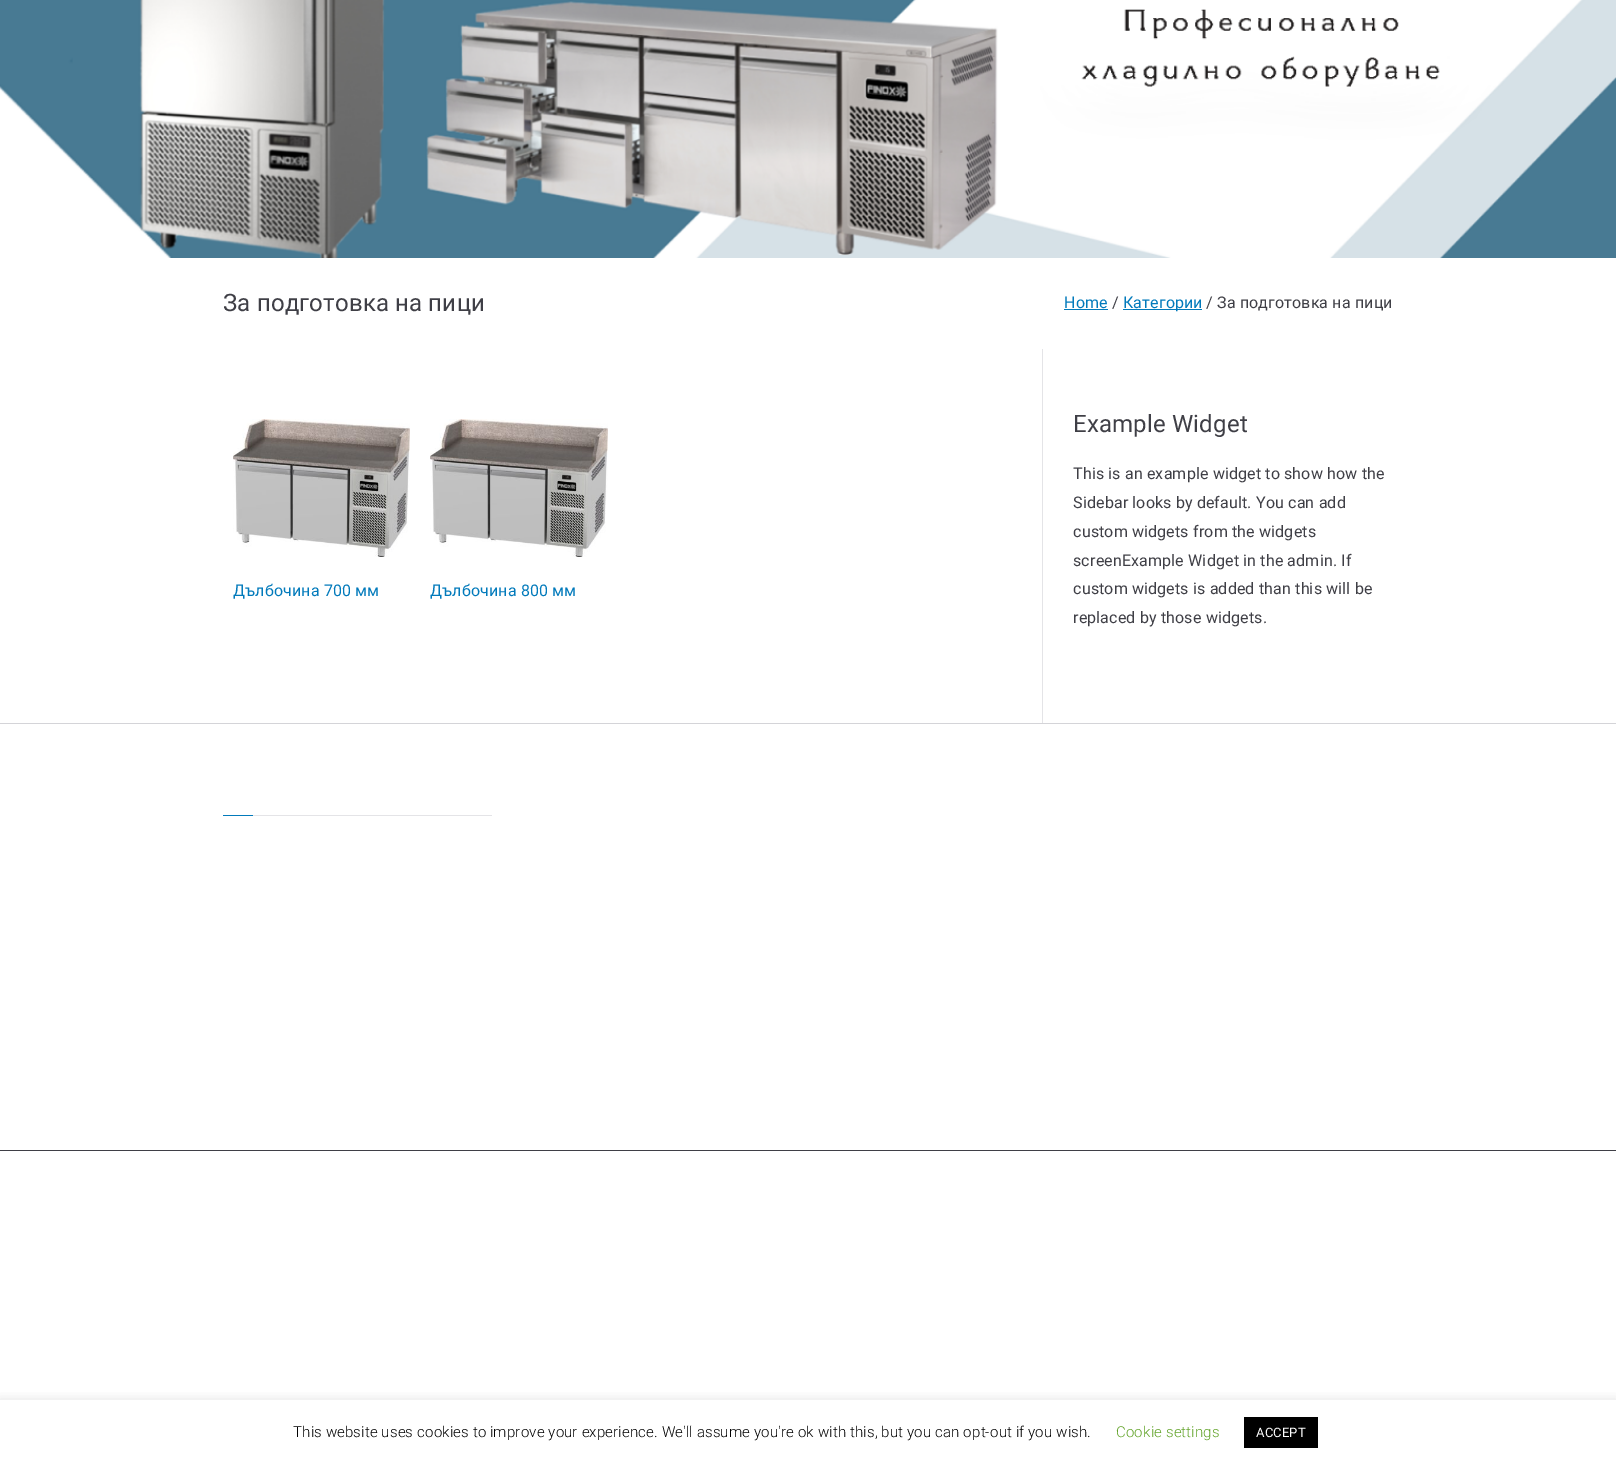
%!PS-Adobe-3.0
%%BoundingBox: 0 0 1616 1465
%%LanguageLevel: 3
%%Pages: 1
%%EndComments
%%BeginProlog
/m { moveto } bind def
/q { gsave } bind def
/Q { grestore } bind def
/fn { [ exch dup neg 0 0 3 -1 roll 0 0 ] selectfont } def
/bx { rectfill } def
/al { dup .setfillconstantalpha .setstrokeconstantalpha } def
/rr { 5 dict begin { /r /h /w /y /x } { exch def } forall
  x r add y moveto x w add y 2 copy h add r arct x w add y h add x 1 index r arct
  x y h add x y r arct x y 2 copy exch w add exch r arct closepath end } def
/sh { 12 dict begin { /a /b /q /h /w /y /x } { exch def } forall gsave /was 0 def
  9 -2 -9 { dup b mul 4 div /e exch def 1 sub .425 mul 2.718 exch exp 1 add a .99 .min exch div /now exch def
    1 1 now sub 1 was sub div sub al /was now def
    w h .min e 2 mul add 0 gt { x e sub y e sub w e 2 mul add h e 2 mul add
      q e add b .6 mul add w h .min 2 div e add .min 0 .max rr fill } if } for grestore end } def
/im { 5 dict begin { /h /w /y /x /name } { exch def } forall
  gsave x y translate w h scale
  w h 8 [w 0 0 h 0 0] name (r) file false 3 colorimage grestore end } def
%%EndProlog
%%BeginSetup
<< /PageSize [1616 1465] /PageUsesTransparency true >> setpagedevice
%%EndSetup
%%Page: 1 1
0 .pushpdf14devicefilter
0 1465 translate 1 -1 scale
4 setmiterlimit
1 setgray
0 0 1616 1465 bx
(image0.raw) 0 0 1616 258 im
/Roboto-Regular 24 fn
0.247 0.247 0.275 setrgbcolor
223 311 m 0.16 0 (За подготовка на пици) ashow
/Roboto-Regular 16 fn
0.008 0.478 0.733 setrgbcolor
1064 308 m 0.16 0 (Home) ashow
1064 309 44 1 bx
0.247 0.247 0.275 setrgbcolor
1112 308 m 0.16 0 (/) ashow
0.008 0.478 0.733 setrgbcolor
1123 309 79 1 bx
1123 308 m 0.16 0 (Категории) ashow
0.247 0.247 0.275 setrgbcolor
1206 308 m 0.16 0 (/ За подготовка на пици) ashow
(image1.raw) 233 419 177 138 im
0.008 0.478 0.733 setrgbcolor
233 596 m 0.16 0 (Дълбочина 700 мм) ashow
(image2.raw) 430 419 178 138 im
430 596 m 0.16 0 (Дълбочина 800 мм) ashow
0.894 0.894 0.906 setrgbcolor
1042 349 1 374 bx
/Roboto-Regular 24 fn
0.247 0.247 0.275 setrgbcolor
1073 432 m 0.16 0 (Example Widget) ashow
/Roboto-Regular 16 fn
1073 479 m 0.16 0 (This is an example widget to show how the) ashow
1073 508 m 0.16 0 (Sidebar looks by default. You can add) ashow
1073 537 m 0.16 0 (custom widgets from the widgets) ashow
1073 566 m 0.16 0 (screenExample Widget in the admin. If) ashow
1073 594 m 0.16 0 (custom widgets is added than this will be) ashow
1073 623 m 0.16 0 (replaced by those widgets.) ashow
0.831 0.831 0.847 setrgbcolor
0 723 1616 1 bx
0.894 0.894 0.906 setrgbcolor
253 815 239 1 bx
0.008 0.478 0.733 setrgbcolor
223 815 30 1 bx
0.247 0.247 0.275 setrgbcolor
0 1150 1616 1 bx
q
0 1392 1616 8 rectclip
0.675 0.671 0.671 setrgbcolor
0 1399 1616 65 0 5 0.3 sh
Q
/Roboto-Light 15 fn
0 setgray
293 1437 m 0.16 0 (This website uses cookies to improve your experience. We'll assume you're ok with this, but you can opt-out if you wish.) ashow
0.384 0.639 0.161 setrgbcolor
1116 1437 m 0.16 0 (Cookie settings) ashow
0 setgray
1244 1417 74 31 bx
/Roboto-Regular 13 fn
1 setgray
1256 1437 m 0.16 0 (ACCEPT) ashow
.poppdf14devicefilter showpage
%%EOF
